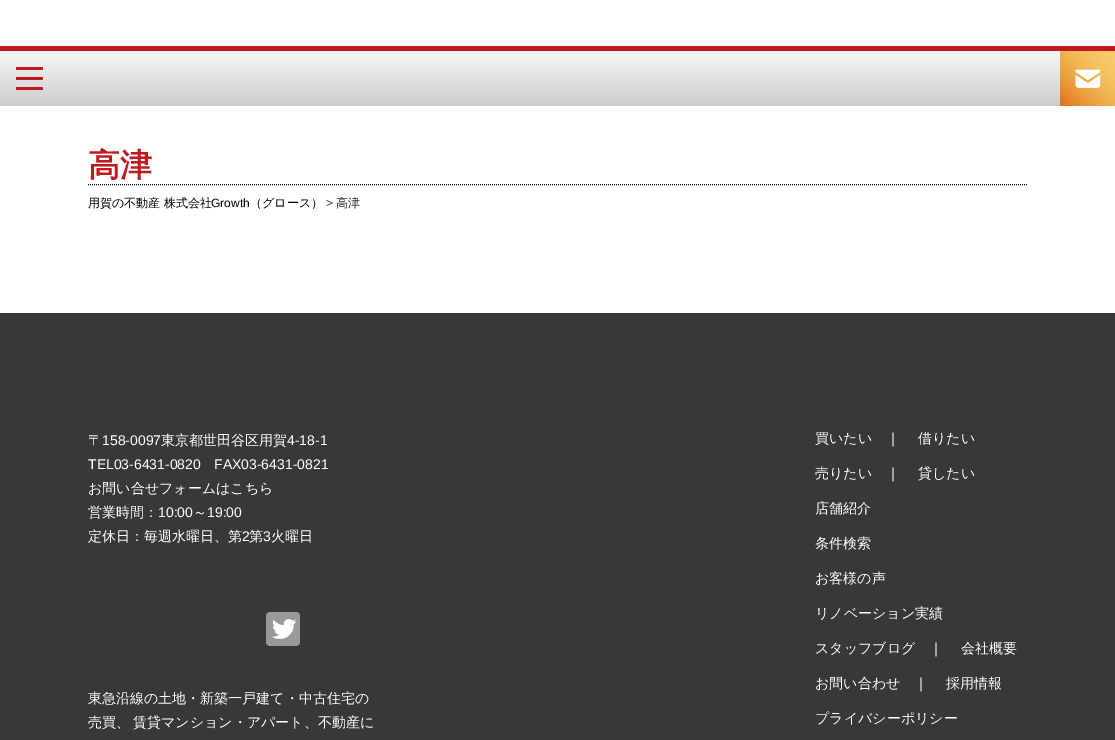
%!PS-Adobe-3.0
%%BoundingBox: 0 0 1115 740
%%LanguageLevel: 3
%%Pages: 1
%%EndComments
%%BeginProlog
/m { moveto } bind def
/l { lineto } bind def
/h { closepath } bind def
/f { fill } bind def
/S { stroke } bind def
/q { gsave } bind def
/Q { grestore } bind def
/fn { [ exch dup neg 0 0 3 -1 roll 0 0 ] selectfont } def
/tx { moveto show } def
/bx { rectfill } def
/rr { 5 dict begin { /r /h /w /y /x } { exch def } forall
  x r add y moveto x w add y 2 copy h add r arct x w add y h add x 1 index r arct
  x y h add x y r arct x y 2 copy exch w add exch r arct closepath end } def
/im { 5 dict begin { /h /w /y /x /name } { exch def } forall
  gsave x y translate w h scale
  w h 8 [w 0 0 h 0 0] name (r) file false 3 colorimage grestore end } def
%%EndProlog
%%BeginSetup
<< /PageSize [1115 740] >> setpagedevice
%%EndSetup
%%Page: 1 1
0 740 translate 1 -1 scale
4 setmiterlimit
1 setgray
0 0 1115 740 bx
q 0 51 m 1060 51 l 1060 106 l 0 106 l h clip newpath
<< /ShadingType 2 /ColorSpace /DeviceRGB /Coords [558 51 558 106] /Extend [true true] /Function << /FunctionType 3 /Domain [0 1] /Functions [<< /FunctionType 2 /Domain [0 1] /C0 [0.969 0.969 0.969] /C1 [0.969 0.969 0.969] /N 1 >> << /FunctionType 2 /Domain [0 1] /C0 [0.969 0.969 0.969] /C1 [0.8 0.8 0.8] /N 1 >>] /Bounds [0.01] /Encode [0 1 0 1] >> >> shfill Q
0.745 0.102 0.125 setrgbcolor
0 46 1115 5 bx
16 67 27 3 1 rr f
16 77 27 3 1 rr f
16 87 27 3 1 rr f
(image0.raw) 1060 51 55 55 im
0 setgray
[1 1] 0 setdash
88 184.5 m 1028 184.5 l S
/WenQuanYiZenHei-Bold 32 fn
0.745 0.102 0.125 setrgbcolor
(高津) 88 176 tx
/WenQuanYiZenHei-Medium 12 fn
0 setgray
(用賀の不動産 株式会社) 88 207 tx
/LiberationSans-Regular 12 fn
(Growth) 211 207 tx
/WenQuanYiZenHei-Medium 12 fn
(（グロース）) 250 207 tx
/LiberationSans-Regular 12 fn
0.2 setgray
(>) 326 207 tx
/WenQuanYiZenHei-Medium 12 fn
(高津) 336 207 tx
0.22 setgray
0 313 1115 427 bx
/WenQuanYiZenHei-Medium 14 fn
1 setgray
(〒) 88 445 tx
/LiberationSans-Regular 14 fn
(158-0097) 102 445 tx
/WenQuanYiZenHei-Medium 14 fn
(東京都世田谷区用賀) 161 445 tx
/LiberationSans-Regular 14 fn
(4-18-1) 287 445 tx
(TEL03-6431-0820) 88 469 tx
(FAX03-6431-0821) 214 469 tx
/WenQuanYiZenHei-Medium 14 fn
(お問い合せフォームはこちら) 88 493 tx
(営業時間：) 88 517 tx
/LiberationSans-Regular 14 fn
(10:00) 158 517 tx
/WenQuanYiZenHei-Medium 14 fn
(～) 193 517 tx
/LiberationSans-Regular 14 fn
(19:00) 207 517 tx
/WenQuanYiZenHei-Medium 14 fn
(定休日：毎週水曜日、第) 88 541 tx
/LiberationSans-Regular 14 fn
(2) 242 541 tx
/WenQuanYiZenHei-Medium 14 fn
(第) 249 541 tx
/LiberationSans-Regular 14 fn
(3) 263 541 tx
/WenQuanYiZenHei-Medium 14 fn
(火曜日) 271 541 tx
(image1.raw) 266 612 34 34 im
(東急沿線の土地・新築一戸建て・中古住宅の) 88 703 tx
(売買、) 88 727 tx
(賃貸マンション・アパート、不動産に) 133 727 tx
(買いたい) 815 443 tx
(｜) 886 443 tx
(借りたい) 918 443 tx
(売りたい) 815 478 tx
(｜) 886 478 tx
(貸したい) 918 478 tx
(店舗紹介) 815 513 tx
(条件検索) 815 548 tx
(お客様の声) 815 583 tx
(リノベーション実績) 815 618 tx
(スタッフブログ) 815 653 tx
(｜) 929 653 tx
(会社概要) 961 653 tx
(お問い合わせ) 815 688 tx
(｜) 914 688 tx
(採用情報) 946 688 tx
(プライバシーポリシー) 815 723 tx
showpage
%%EOF
